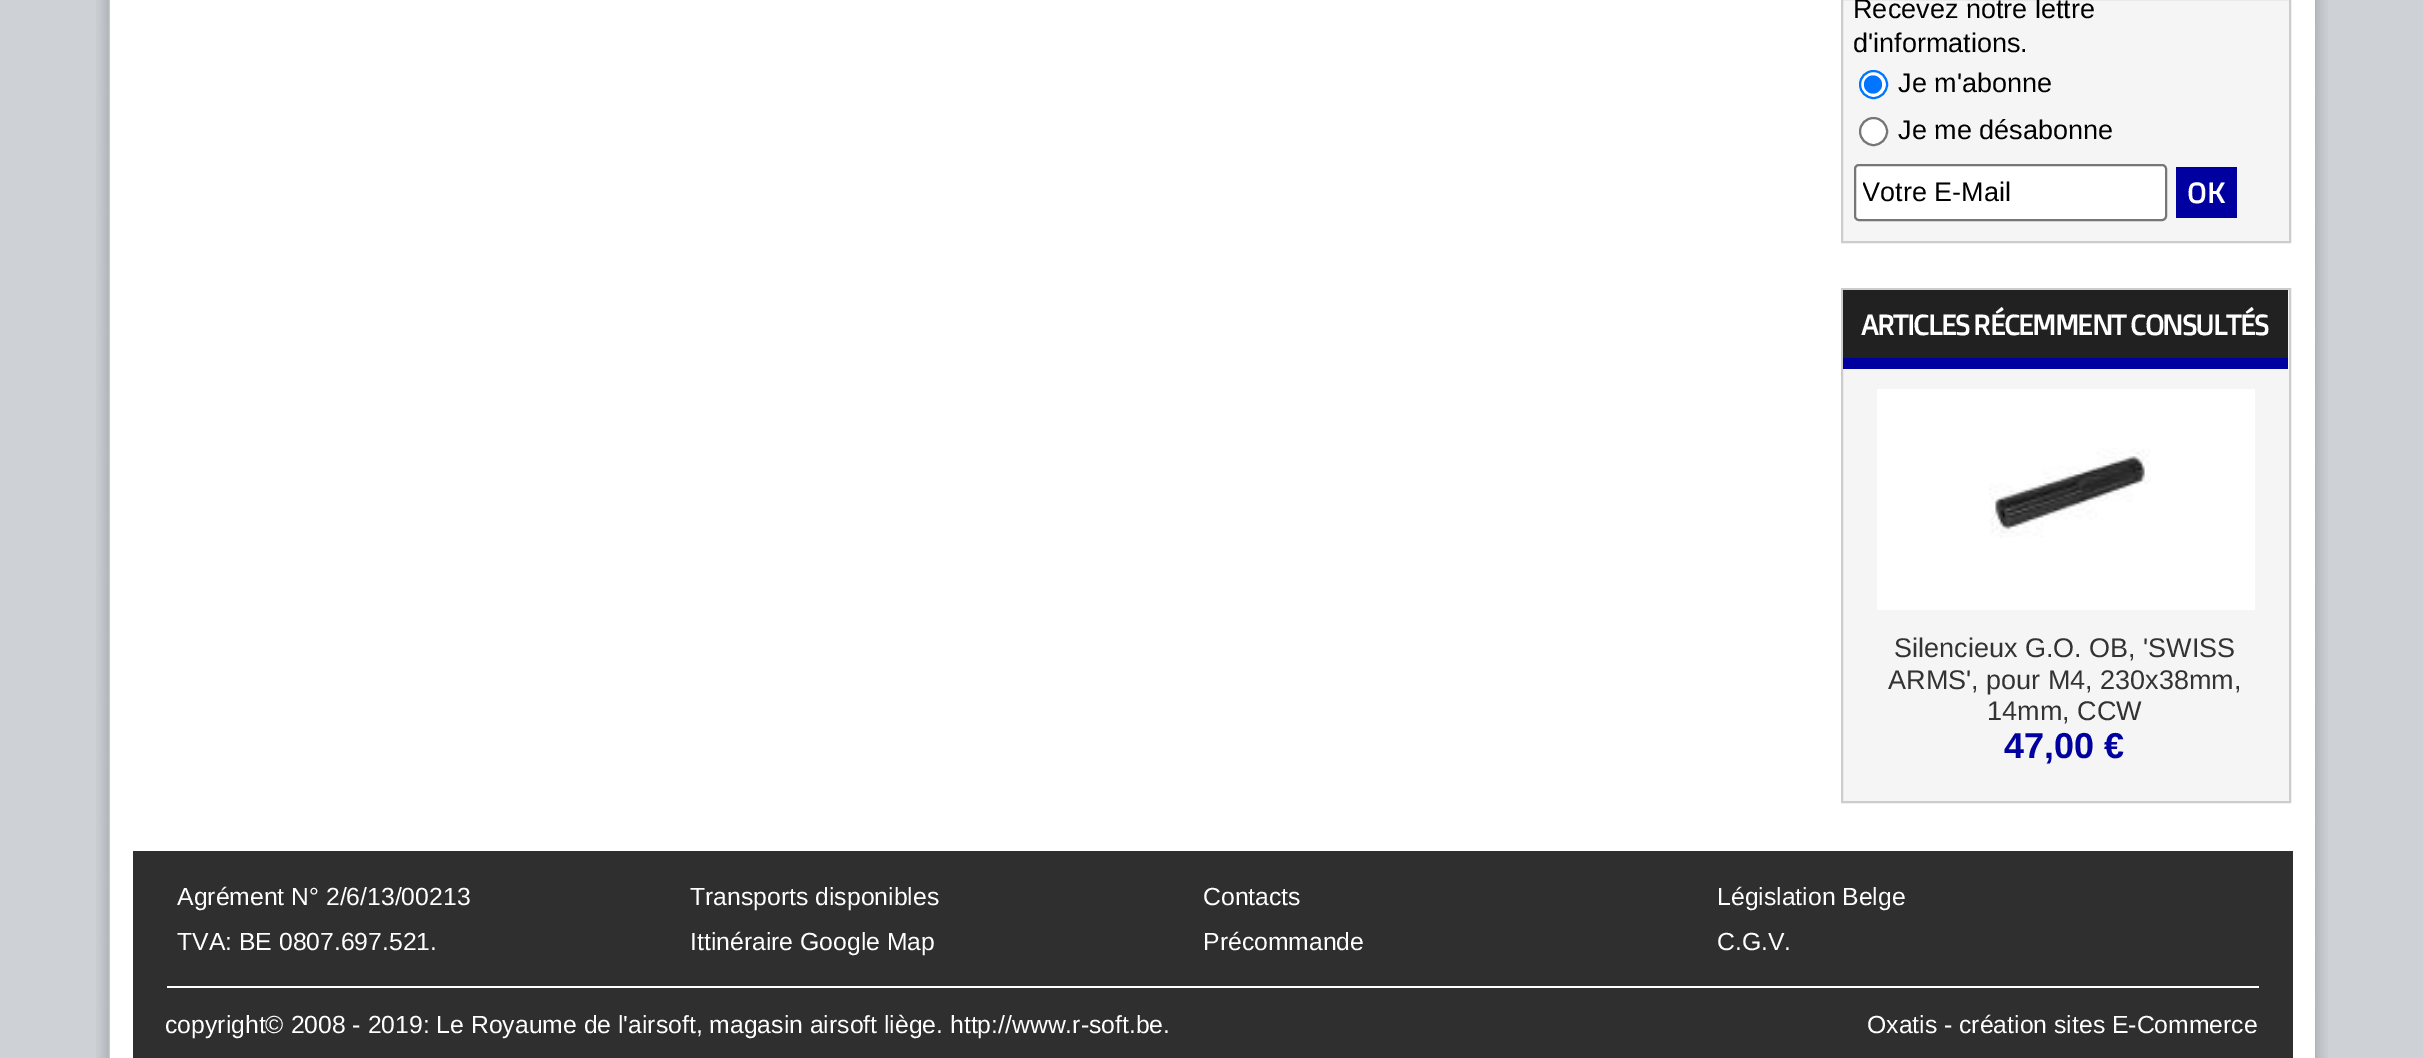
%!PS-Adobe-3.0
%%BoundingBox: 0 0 2423 1058
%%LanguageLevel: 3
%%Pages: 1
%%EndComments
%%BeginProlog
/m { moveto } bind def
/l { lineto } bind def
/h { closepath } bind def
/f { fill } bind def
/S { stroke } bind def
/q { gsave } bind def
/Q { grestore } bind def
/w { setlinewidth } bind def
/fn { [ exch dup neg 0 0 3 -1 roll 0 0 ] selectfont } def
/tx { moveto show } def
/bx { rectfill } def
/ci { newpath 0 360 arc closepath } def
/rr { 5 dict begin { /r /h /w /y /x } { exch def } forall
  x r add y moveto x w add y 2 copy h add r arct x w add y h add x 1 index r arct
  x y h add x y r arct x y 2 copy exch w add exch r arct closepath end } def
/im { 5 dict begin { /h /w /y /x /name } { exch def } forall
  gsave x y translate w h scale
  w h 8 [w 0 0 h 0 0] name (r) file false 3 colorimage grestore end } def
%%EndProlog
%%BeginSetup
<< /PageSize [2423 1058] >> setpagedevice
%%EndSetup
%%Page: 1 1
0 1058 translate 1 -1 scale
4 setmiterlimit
0.808 0.824 0.839 setrgbcolor
0 0 2423 1058 bx
(image0.raw) 96 0 2232 1058 im
1 setgray
110 0 2205 1058 bx
0.961 setgray
1842 -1 m 2290 -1 l 2290 242 l 1842 242 l h q f Q
0.8 setgray
2 w
S
/LiberationSans-Regular 27 fn
0 setgray
(Recevez notre lettre) 1853 18 tx
(d'informations.) 1853 52 tx
1 setgray
1873.5 84.5 13.5 ci q f Q
0 0.459 1 setrgbcolor
S
1873 84.5 9 ci f
0 setgray
(Je m'abonne) 1898 92 tx
1 setgray
1873.5 131.5 13.5 ci q f Q
0.463 setgray
S
0 setgray
(Je me désabonne) 1898 139 tx
1 setgray
1855 165 311 55 4 rr q f Q
0.463 setgray
S
q
1863 178 295 31 rectclip
0 setgray
(Votre E-Mail) 1862 201 tx
Q
0 0 0.631 setrgbcolor
2176 167 61 51 bx
/DoppioOne-Regular 29.25 fn
1 setgray
(OK) 2187 203 tx
0.961 setgray
1842 289 m 2290 289 l 2290 802 l 1842 802 l h q f Q
0.8 setgray
S
0.129 setgray
1843 290 445 68 bx
0 0 0.631 setrgbcolor
1843 358 445 11 bx
1 setgray
1861 335 m -2.25 0 (ARTICLES RÉCEMMENT CONSULTÉS) ashow
1877 389 378 221 bx
(image1.raw) 1989 448 162 90 im
/LiberationSans-Regular 27 fn
0.2 setgray
(Silencieux G.O. OB, 'SWISS) 1894 657 tx
(ARMS', pour M4, 230x38mm,) 1888 689 tx
(14mm, CCW) 1987 720 tx
/LiberationSans-Bold 36 fn
0 0 0.631 setrgbcolor
(47,00 €) 2004 758 tx
0.184 setgray
133 851 2160 207 bx
1 setgray
167 986 2092 2 bx
/LiberationSans-Regular 24.75 fn
(Agrément N° 2/6/13/00213) 177 905 tx
(Transports disponibles) 690 905 tx
(Contacts) 1203 905 tx
(Législation Belge) 1717 905 tx
(TVA: BE 0807.697.521.) 177 950 tx
(Ittinéraire Google Map) 690 950 tx
(Précommande) 1203 950 tx
(C.G.V.) 1717 950 tx
(copyright© 2008 - 2019: Le Royaume de l'airsoft, magasin airsoft liège. http://www.r-soft.be.) 165 1033 tx
(Oxatis - création sites E-Commerce) 1867 1033 tx
showpage
%%EOF
